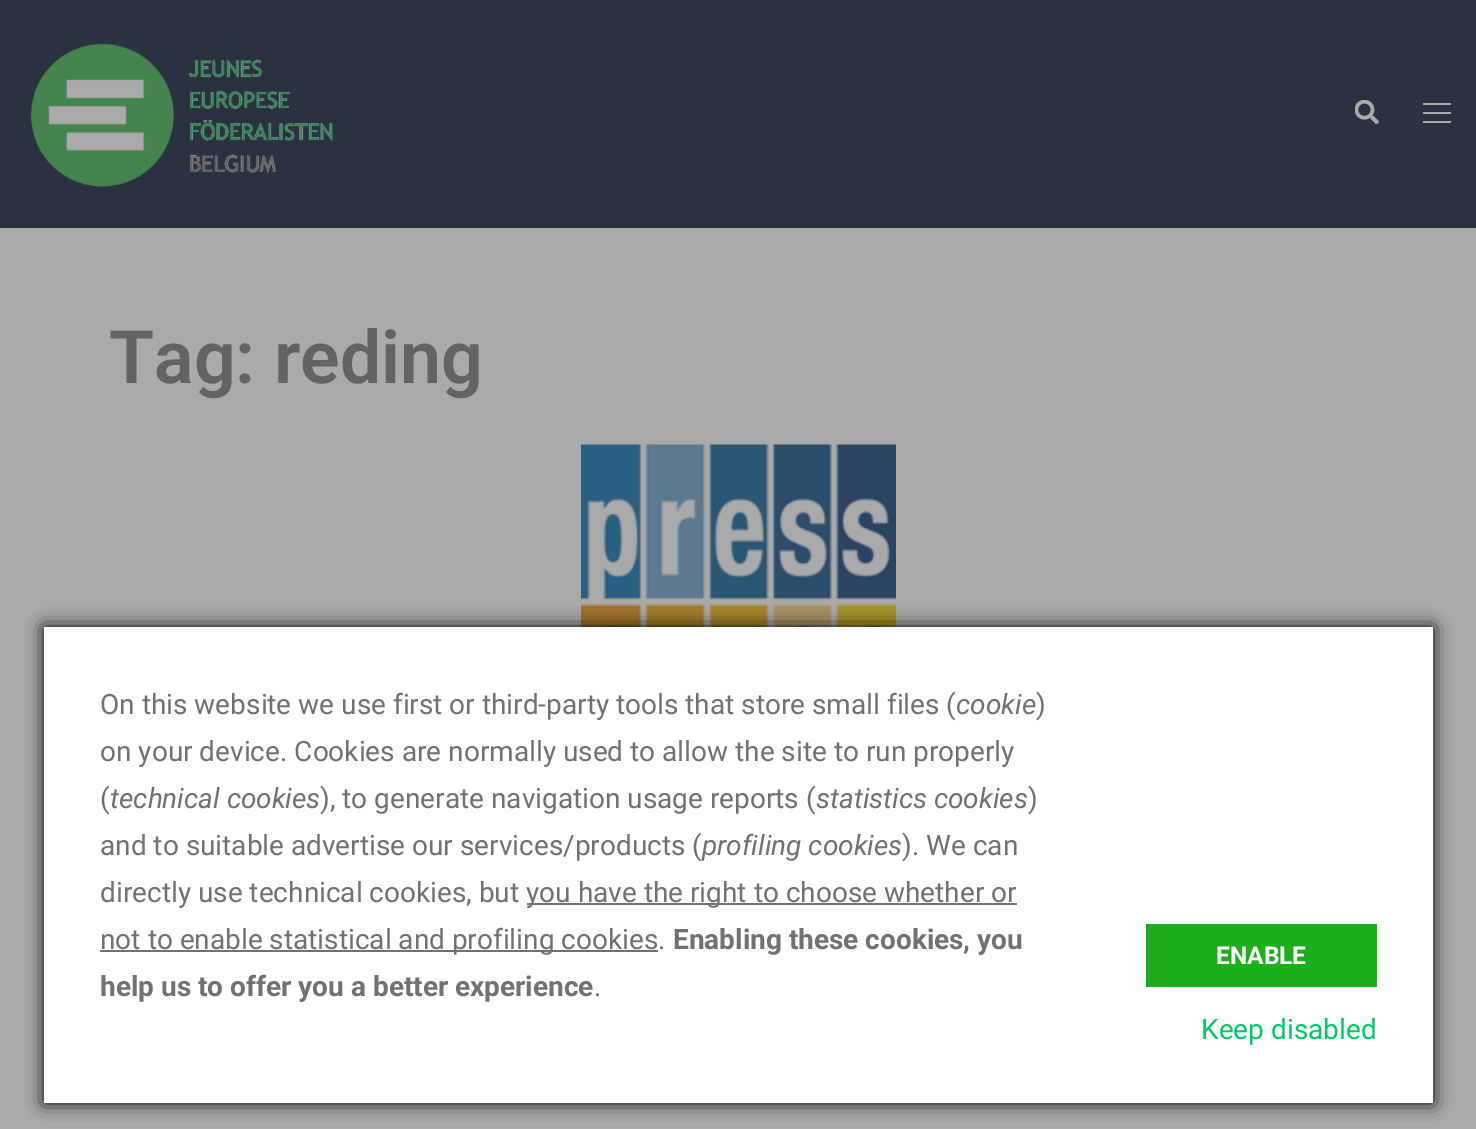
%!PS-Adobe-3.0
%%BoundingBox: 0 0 1476 1129
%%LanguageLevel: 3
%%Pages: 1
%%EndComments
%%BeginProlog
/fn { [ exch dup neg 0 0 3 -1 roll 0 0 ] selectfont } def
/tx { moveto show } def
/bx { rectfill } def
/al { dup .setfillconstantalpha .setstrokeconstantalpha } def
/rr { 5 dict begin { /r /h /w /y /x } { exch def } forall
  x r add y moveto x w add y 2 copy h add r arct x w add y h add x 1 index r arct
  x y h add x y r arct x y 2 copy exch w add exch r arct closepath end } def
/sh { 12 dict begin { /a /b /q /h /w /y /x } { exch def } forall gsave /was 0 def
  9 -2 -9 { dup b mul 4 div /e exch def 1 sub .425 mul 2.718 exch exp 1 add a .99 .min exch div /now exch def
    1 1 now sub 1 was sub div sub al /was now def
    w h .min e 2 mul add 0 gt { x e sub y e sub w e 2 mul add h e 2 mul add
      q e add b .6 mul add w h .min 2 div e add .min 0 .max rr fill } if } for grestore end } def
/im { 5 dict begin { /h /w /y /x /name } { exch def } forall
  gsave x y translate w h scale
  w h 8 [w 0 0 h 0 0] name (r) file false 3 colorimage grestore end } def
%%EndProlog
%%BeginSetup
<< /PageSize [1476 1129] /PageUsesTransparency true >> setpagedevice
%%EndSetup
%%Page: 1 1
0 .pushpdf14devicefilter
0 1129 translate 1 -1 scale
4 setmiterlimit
0.667 setgray
0 0 1476 1129 bx
0.165 0.196 0.255 setrgbcolor
0 0 1476 228 bx
(image0.raw) 30 43 303 144 im
(image1.raw) 1355 100 24 24 im
0.667 setgray
1423 103 28 2 bx
1423 112 28 2 bx
1423 121 28 2 bx
/Roboto-SemiBold 73.5 fn
0.388 0.384 0.392 setrgbcolor
(Tag: reding) 109 383 tx
(image2.raw) 581 444 315 183 im
0 setgray
44 627 1389 476 0 9 1 sh
1 setgray
44 627 1389 476 bx
/Roboto-Regular 28 fn
0.443 0.439 0.451 setrgbcolor
(On this website we use first or third-party tools that store small files \() 100 714 tx
/Roboto-Italic 28 fn
(cookie) 956 714 tx
/Roboto-Regular 28 fn
(\)) 1036 714 tx
(on your device. Cookies are normally used to allow the site to run properly) 100 761 tx
(\() 100 808 tx
/Roboto-Italic 28 fn
(technical cookies) 110 808 tx
/Roboto-Regular 28 fn
(\), to generate navigation usage reports \() 320 808 tx
/Roboto-Italic 28 fn
(statistics cookies) 816 808 tx
/Roboto-Regular 28 fn
(\)) 1028 808 tx
(and to suitable advertise our services/products \() 100 855 tx
/Roboto-Italic 28 fn
(profiling cookies) 702 855 tx
/Roboto-Regular 28 fn
(\). We can) 902 855 tx
(directly use technical cookies, but) 100 902 tx
527 903 490 2 bx
(you have the right to choose whether or) 526 902 tx
100 950 558 2 bx
(not to enable statistical and profiling cookies.) 100 949 tx
/Roboto-Bold 28 fn
(Enabling these cookies, you) 673 949 tx
(help us to offer you a better experience) 100 996 tx
/Roboto-Regular 28 fn
(.) 594 996 tx
0.114 0.682 0.11 setrgbcolor
1146 924 231 63 bx
/Roboto-Bold 24.5 fn
1 setgray
(ENABLE) 1216 964 tx
/Roboto-Regular 28 fn
0 0.8 0.4 setrgbcolor
(Keep disabled) 1201 1039 tx
.poppdf14devicefilter showpage
%%EOF
